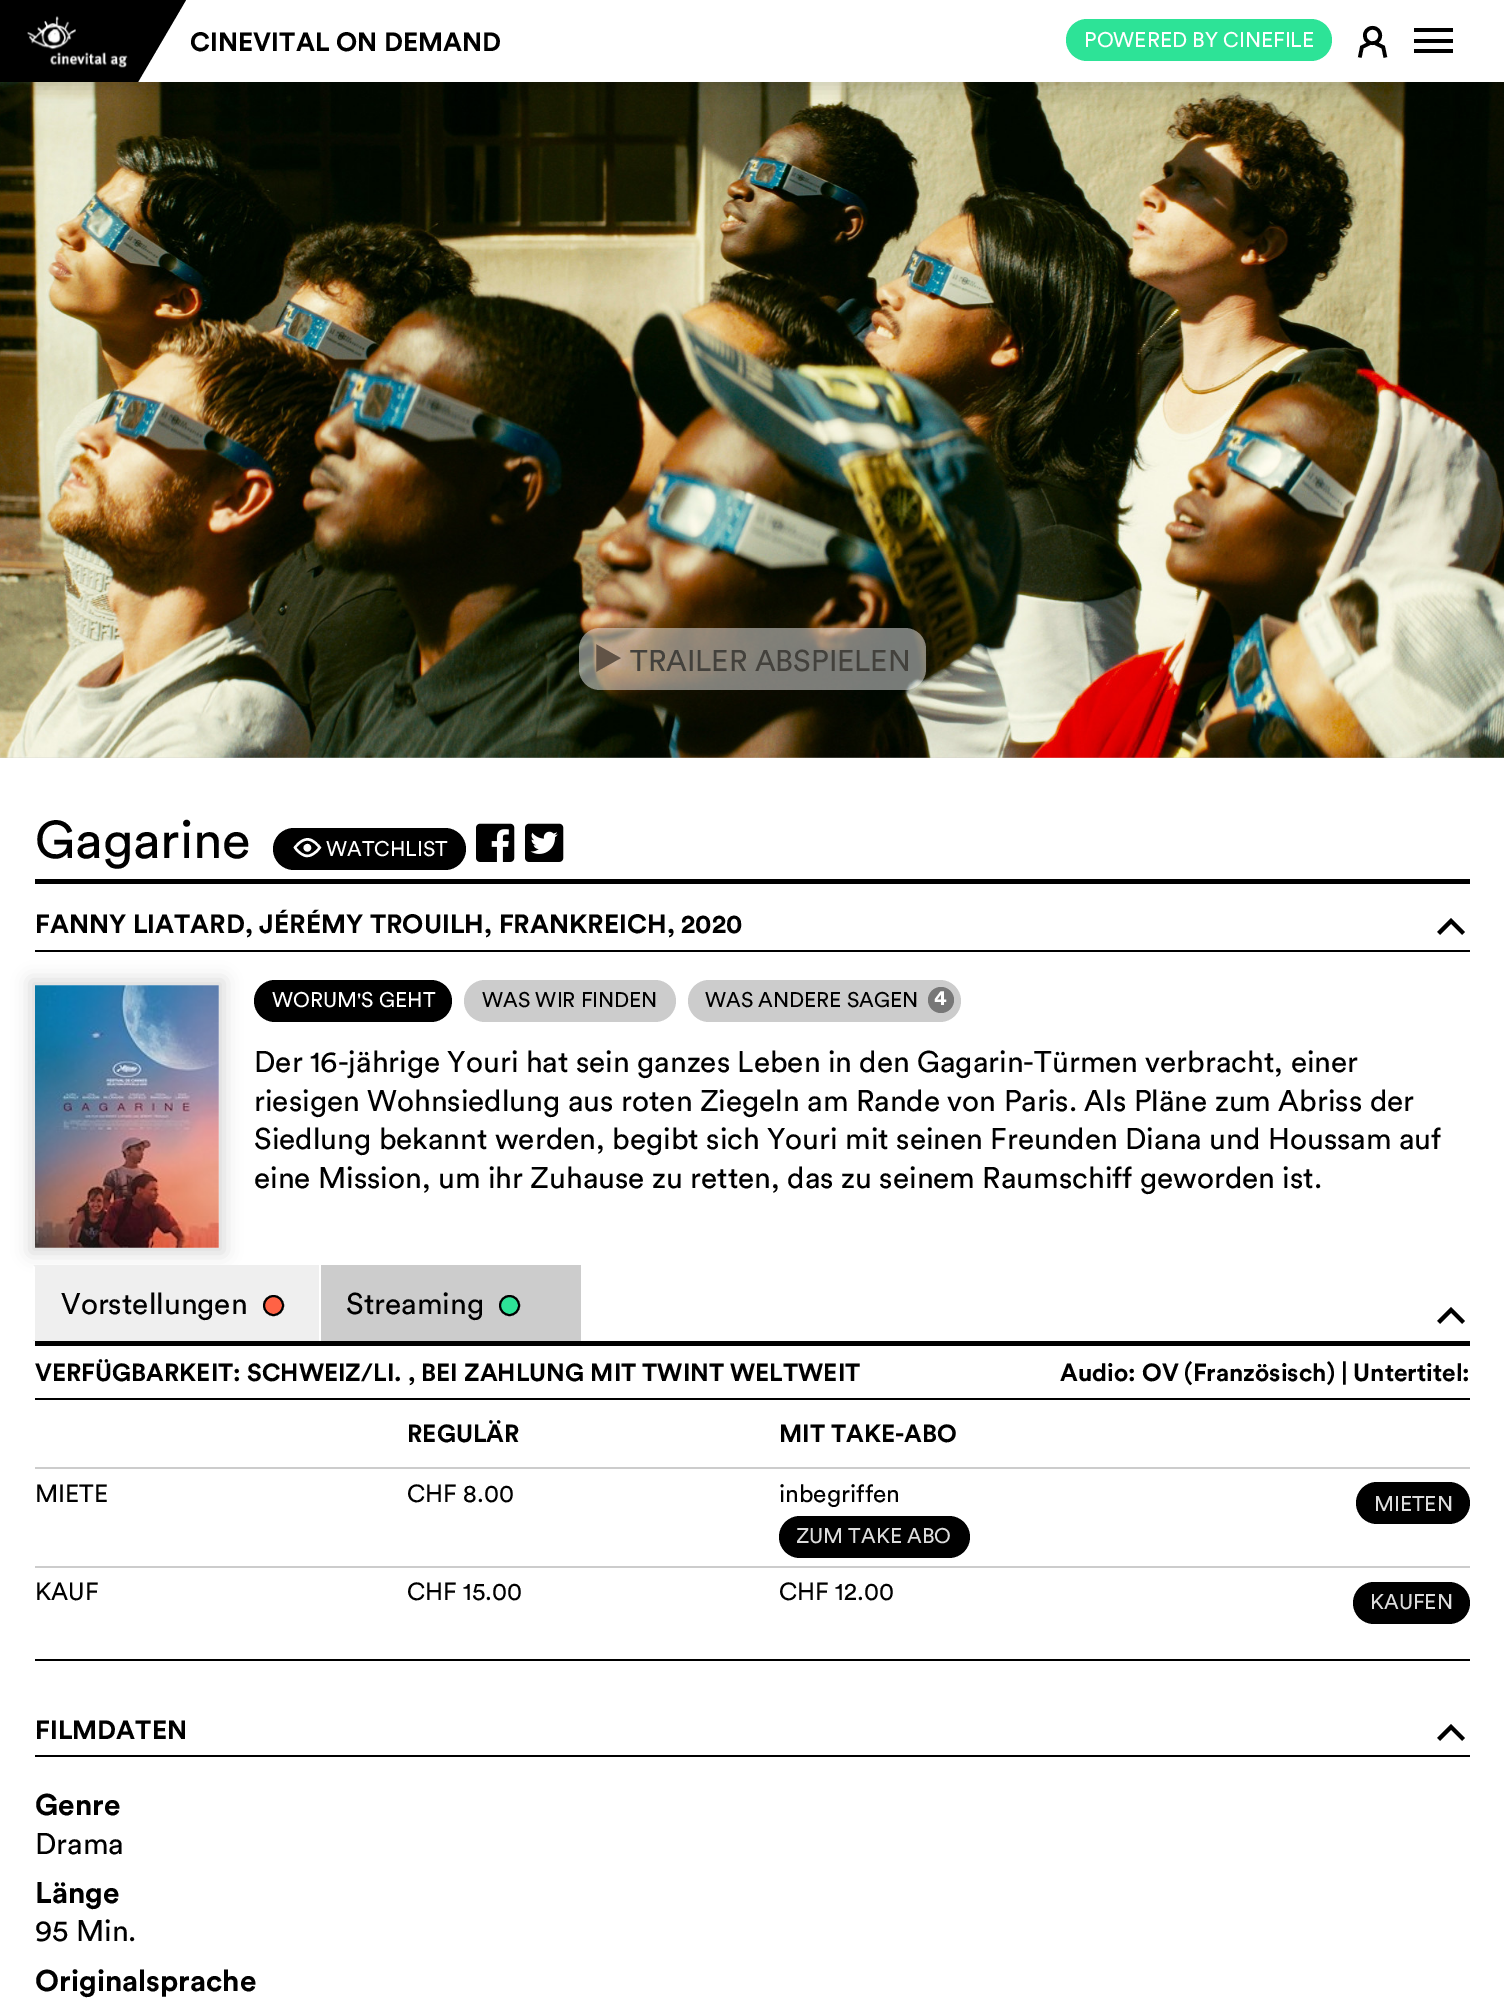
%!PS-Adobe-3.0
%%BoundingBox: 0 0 1504 2003
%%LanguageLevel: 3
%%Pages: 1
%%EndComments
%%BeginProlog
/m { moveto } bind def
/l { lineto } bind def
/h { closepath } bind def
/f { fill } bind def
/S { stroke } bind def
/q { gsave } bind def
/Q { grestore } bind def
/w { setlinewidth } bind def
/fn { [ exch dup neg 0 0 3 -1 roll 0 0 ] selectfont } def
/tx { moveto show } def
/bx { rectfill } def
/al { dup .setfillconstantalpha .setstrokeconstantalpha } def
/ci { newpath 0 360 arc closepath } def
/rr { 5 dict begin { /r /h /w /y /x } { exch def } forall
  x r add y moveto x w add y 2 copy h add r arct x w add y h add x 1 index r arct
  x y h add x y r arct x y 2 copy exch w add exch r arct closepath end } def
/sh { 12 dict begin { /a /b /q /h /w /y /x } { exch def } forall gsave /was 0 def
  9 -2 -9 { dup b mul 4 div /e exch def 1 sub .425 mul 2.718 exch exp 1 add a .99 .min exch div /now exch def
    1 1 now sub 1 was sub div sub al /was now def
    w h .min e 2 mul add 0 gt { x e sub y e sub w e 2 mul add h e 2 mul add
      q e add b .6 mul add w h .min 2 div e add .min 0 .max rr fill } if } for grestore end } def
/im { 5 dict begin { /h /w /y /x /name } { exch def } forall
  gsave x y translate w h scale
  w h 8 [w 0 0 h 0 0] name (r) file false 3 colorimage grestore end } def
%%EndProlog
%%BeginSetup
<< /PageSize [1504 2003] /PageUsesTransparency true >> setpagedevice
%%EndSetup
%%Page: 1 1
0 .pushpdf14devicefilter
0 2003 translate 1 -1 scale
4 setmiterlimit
1 setgray
0 0 1504 2003 bx
(image1.raw) 0 82 1504 676 im
0 setgray
-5 -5 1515 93 0 9 0.15 sh
1 setgray
138 0 1366 82 bx
0 setgray
0 0 138 82 bx
(image0.raw) 27 16 101 52 im
138 0 m 186 0 l 138 82 l h f
/Circular-Bold 26.25 fn
(CINEVITAL ON DEMAND) 190 51 tx
0.176 0.89 0.592 setrgbcolor
1066 19 266 42 21 rr f
/Circular-Regular 21 fn
1 setgray
(POWERED BY CINEFILE) 1084 47 tx
/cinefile-Regular 37 fn
0 setgray
(E) 1354 58 tx
1414 28 39 4 bx
1414 39 39 4 bx
1414 49 39 4 bx
0.5 al
0.937 setgray
579 628 347 62 21 rr f
/cinefile-Regular 29.75 fn
1 al
0.38 0.325 0.275 setrgbcolor
(e) 595 671 tx
/Circular-Regular 29.75 fn
0.263 0.255 0.235 setrgbcolor
(TRAILER ABSPIELEN) 630 671 tx
0 setgray
35 879 1435 5 bx
/Circular-Regular 52.5 fn
(Gagarine) 35 858 tx
273 828 193 42 21 rr f
/cinefile-Regular 26.25 fn
1 setgray
(F) 292 859 tx
/Circular-Regular 21 fn
(WATCHLIST) 326 856 tx
(image2.raw) 476 823 39 39 im
(image3.raw) 525 823 39 39 im
0 setgray
35 950 1435 2 bx
/Circular-Bold 26.25 fn
(FANNY LIATARD, JÉRÉMY TROUILH, FRANKREICH, 2020) 35 933 tx
/cinefile-Regular 38 fn
(o) 1432 943 tx
30 980 194 273 0 9 0.15 sh
(image4.raw) 35 985 184 263 im
254 980 198 42 21 rr f
/Circular-Regular 21 fn
1 setgray
(WORUM'S GEHT) 272 1007 tx
0.8 setgray
464 980 212 42 21 rr f
0 setgray
(WAS WIR FINDEN) 482 1007 tx
0.8 setgray
688 980 273 42 21 rr f
0 setgray
(WAS ANDERE SAGEN) 705 1007 tx
0.467 setgray
941 1000 13 ci f
/Circular-Bold 21 fn
1 setgray
(4) 934 1005 tx
/Circular-Regular 29.75 fn
0 setgray
(Der 16-jährige Youri hat sein ganzes Leben in den Gagarin-Türmen verbracht, einer) 254 1072 tx
(riesigen Wohnsiedlung aus roten Ziegeln am Rande von Paris. Als Pläne zum Abriss der) 254 1111 tx
(Siedlung bekannt werden, begibt sich Youri mit seinen Freunden Diana und Houssam auf) 254 1149 tx
(eine Mission, um ihr Zuhause zu retten, das zu seinem Raumschiff geworden ist.) 254 1188 tx
35 1341 1435 5 bx
0.937 setgray
33 1265 286 76 bx
1 setgray
33 1340 m 33 1265 l 35 1267 l 35 1340 l h f
0 setgray
(Vorstellungen) 61 1314 tx
1 0.384 0.271 setrgbcolor
273.5 1305.5 9.5 ci q f Q
0 setgray
2 w
S
0.8 setgray
321 1265 260 76 bx
0 setgray
(Streaming) 346 1314 tx
0.176 0.89 0.592 setrgbcolor
509.5 1305.5 9.5 ci q f Q
0 setgray
S
/cinefile-Regular 38 fn
(o) 1432 1332 tx
35 1398 1435 2 bx
/Circular-Bold 24.5 fn
(VERFÜGBARKEIT: SCHWEIZ/LI. , BEI ZAHLUNG MIT TWINT WELTWEIT) 35 1381 tx
(Audio: OV \(Französisch\) | Untertitel:) 1060 1381 tx
35 1659 1435 2 bx
(REGULÄR) 407 1442 tx
(MIT TAKE-ABO) 779 1442 tx
0.8 setgray
35 1467 1435 2 bx
/Circular-Regular 24.5 fn
0 setgray
(MIETE) 35 1502 tx
(CHF 8.00) 407 1502 tx
(inbegriffen) 779 1502 tx
779 1516 191 42 21 rr f
/Circular-Regular 21 fn
0.867 setgray
(ZUM TAKE ABO) 796 1543 tx
0 setgray
1356 1482 114 42 21 rr f
0.867 setgray
(MIETEN) 1374 1511 tx
0.8 setgray
35 1566 1435 2 bx
/Circular-Regular 24.5 fn
0 setgray
(KAUF) 35 1600 tx
(CHF 15.00) 407 1600 tx
(CHF 12.00) 779 1600 tx
1353 1582 117 42 21 rr f
/Circular-Regular 21 fn
0.867 setgray
(KAUFEN) 1370 1609 tx
0 setgray
35 1755 1435 2 bx
/Circular-Bold 26.25 fn
(FILMDATEN) 35 1739 tx
/cinefile-Regular 38 fn
(o) 1432 1749 tx
/Circular-Bold 29.75 fn
(Genre) 35 1815 tx
/Circular-Regular 29.75 fn
(Drama) 35 1854 tx
/Circular-Bold 29.75 fn
(Länge) 35 1903 tx
/Circular-Regular 29.75 fn
(95 Min.) 35 1941 tx
/Circular-Bold 29.75 fn
(Originalsprache) 35 1991 tx
.poppdf14devicefilter showpage
%%EOF
